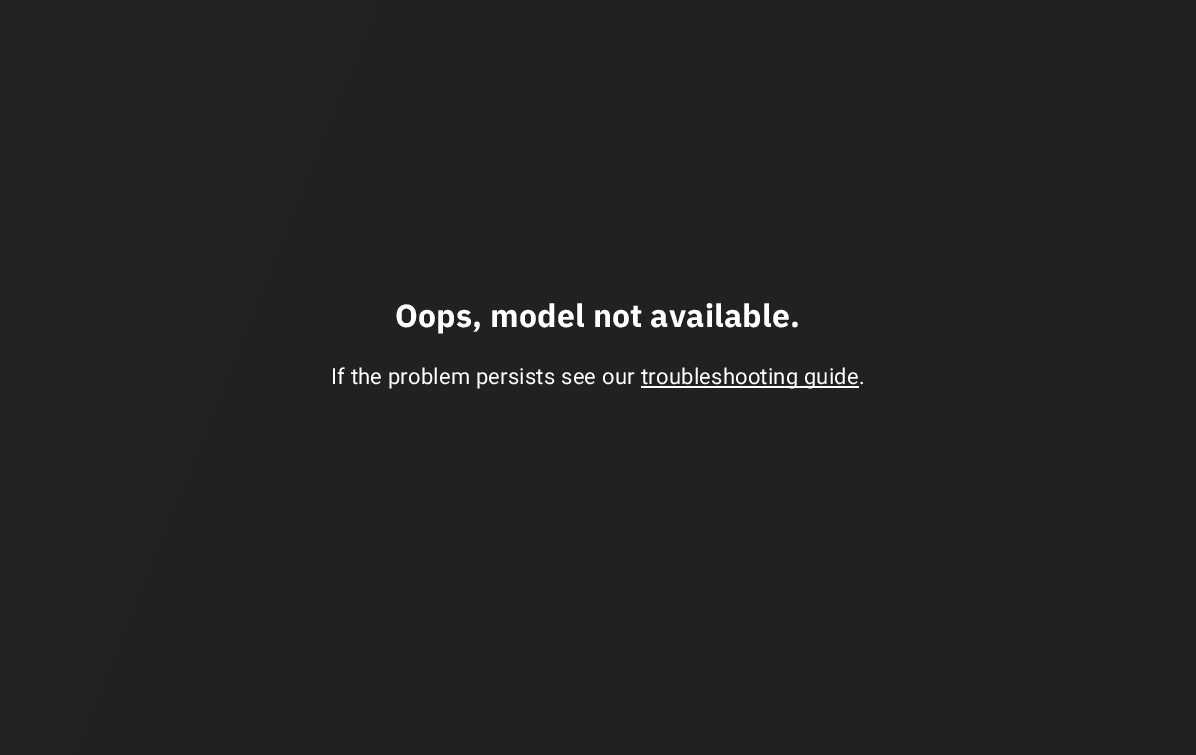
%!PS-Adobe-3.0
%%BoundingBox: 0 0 1196 755
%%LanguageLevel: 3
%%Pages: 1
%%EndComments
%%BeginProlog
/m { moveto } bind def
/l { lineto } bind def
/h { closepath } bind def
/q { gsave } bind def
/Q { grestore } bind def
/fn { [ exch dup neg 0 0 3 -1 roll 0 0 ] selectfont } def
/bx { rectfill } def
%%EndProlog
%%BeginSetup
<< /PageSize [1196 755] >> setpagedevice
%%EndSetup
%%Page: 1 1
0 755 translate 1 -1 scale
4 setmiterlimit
1 setgray
0 0 1196 755 bx
q 0 0 m 1196 0 l 1196 755 l 0 755 l h clip newpath
<< /ShadingType 2 /ColorSpace /DeviceRGB /Coords [-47 117 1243 638] /Extend [true true] /Function << /FunctionType 2 /Domain [0 1] /C0 [0.133 0.133 0.133] /C1 [0.125 0.125 0.125] /N 1 >> >> shfill Q
/IBMPlexSans-Bold 32 fn
395 327 m 0.2 0 (Oops, model not available.) ashow
/Roboto-Regular 22 fn
331 384 m 0.2 0 (If the problem persists see our) ashow
641 386 218 2 bx
641 384 m 0.2 0 (troubleshooting guide.) ashow
showpage
%%EOF
